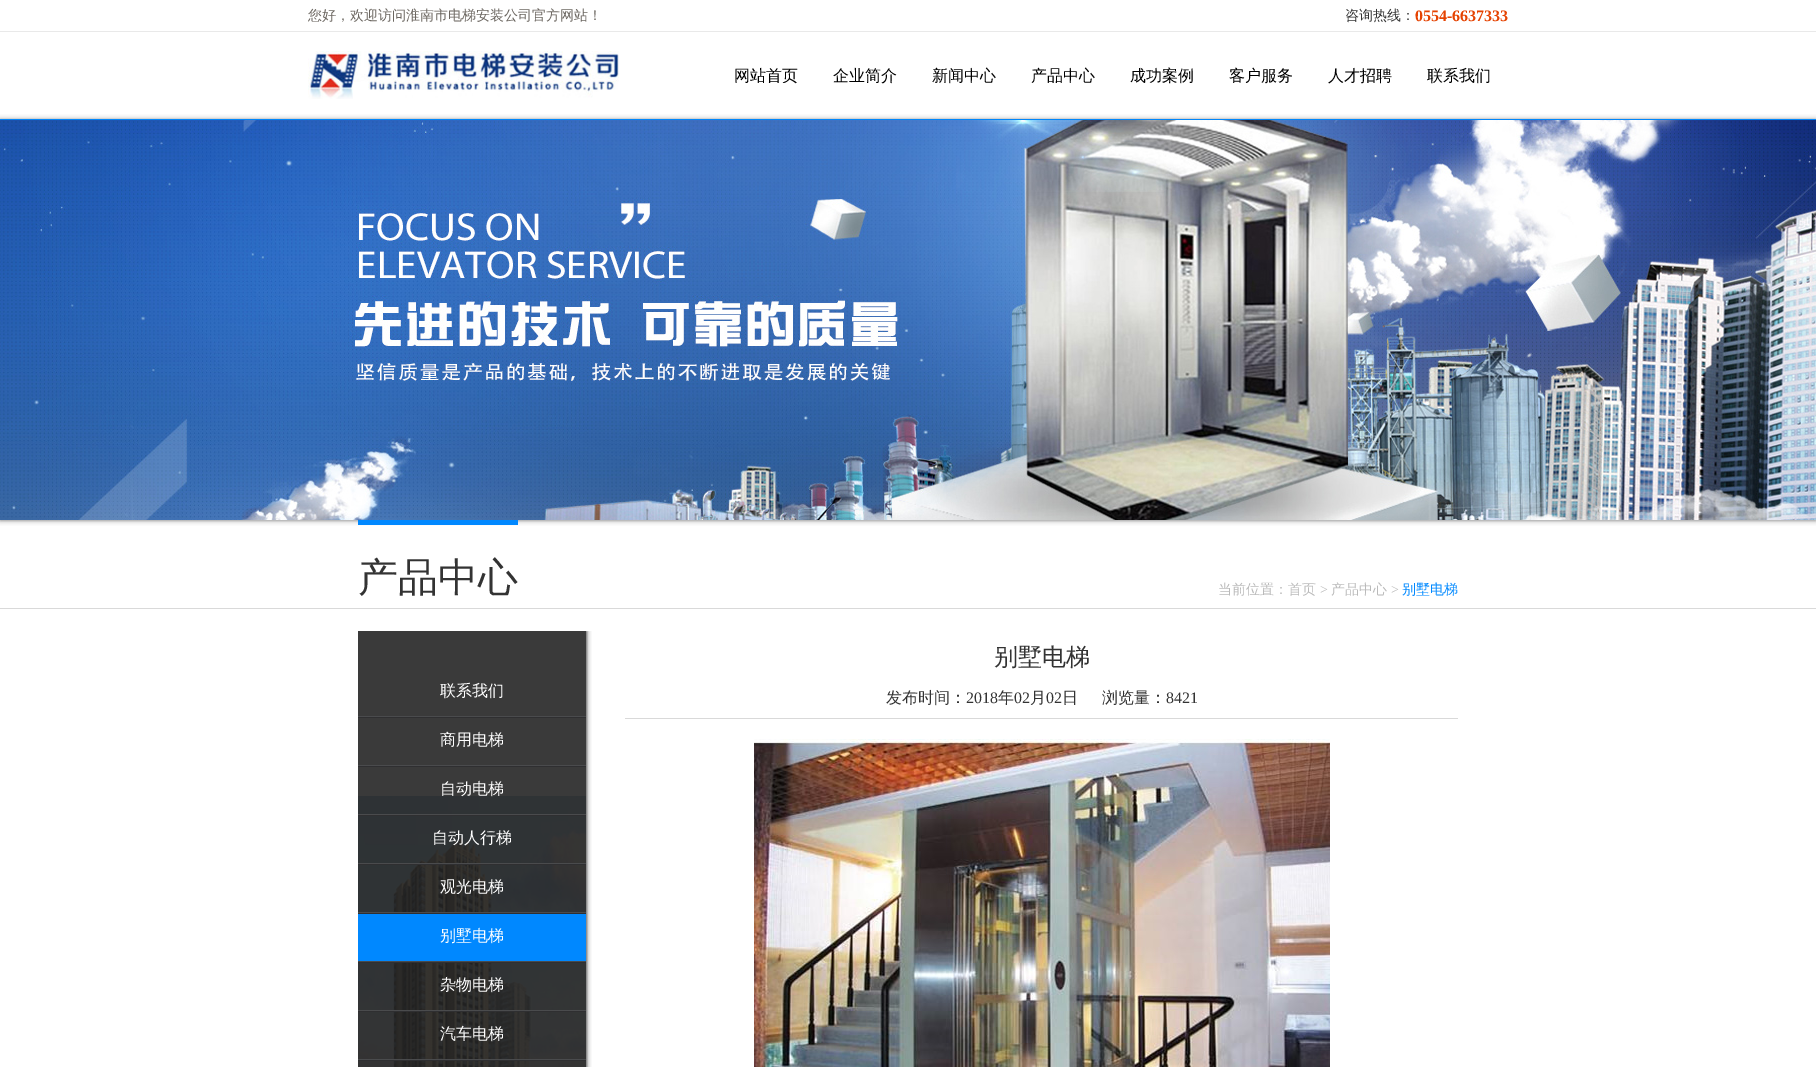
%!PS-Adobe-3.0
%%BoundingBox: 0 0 1816 1067
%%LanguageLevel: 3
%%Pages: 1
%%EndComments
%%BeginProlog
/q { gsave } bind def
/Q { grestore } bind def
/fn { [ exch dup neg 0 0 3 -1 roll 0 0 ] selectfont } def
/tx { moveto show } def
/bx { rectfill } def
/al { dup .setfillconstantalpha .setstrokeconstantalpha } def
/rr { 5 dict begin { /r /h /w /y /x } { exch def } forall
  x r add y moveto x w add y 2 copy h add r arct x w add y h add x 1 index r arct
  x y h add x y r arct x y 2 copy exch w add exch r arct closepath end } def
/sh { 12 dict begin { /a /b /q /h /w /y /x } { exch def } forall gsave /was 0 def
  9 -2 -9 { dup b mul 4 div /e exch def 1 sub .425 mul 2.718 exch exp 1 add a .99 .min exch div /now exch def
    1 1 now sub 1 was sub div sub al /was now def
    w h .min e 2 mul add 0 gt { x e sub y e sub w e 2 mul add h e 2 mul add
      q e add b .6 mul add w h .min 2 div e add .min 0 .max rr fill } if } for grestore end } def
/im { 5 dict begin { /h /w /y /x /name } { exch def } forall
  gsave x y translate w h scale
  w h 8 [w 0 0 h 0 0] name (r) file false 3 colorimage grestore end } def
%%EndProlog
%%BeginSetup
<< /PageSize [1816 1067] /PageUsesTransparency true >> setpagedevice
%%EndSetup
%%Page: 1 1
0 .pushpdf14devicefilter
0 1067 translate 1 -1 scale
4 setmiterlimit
1 setgray
0 0 1816 1067 bx
0.914 setgray
0 31 1816 1 bx
/WenQuanYiZenHei-Medium 14 fn
0.42 0.4 0.376 setrgbcolor
(您好，欢迎访问淮南市电梯安装公司官方网站！) 308 20 tx
0.2 setgray
(咨询热线：) 1345 20 tx
/LiberationSerif-Bold 16 fn
0.898 0.263 0.008 setrgbcolor
(0554-6637333) 1415 21 tx
0.4 setgray
0 120 1816 400 0 2.5 1 sh
0 0.522 0.976 setrgbcolor
0 119 1816 1 bx
(image0.raw) 308 51 311 48 im
/WenQuanYiZenHei-Medium 16 fn
0 setgray
(网站首页) 734 81 tx
(企业简介) 833 81 tx
(新闻中心) 932 81 tx
(产品中心) 1031 81 tx
(成功案例) 1130 81 tx
(客户服务) 1229 81 tx
(人才招聘) 1328 81 tx
(联系我们) 1427 81 tx
(image1.raw) 0 120 1816 400 im
0.851 setgray
0 608 1816 1 bx
0 0.533 1 setrgbcolor
358 520 160 5 bx
/WenQuanYiZenHei-Medium 40 fn
0.2 setgray
(产品中心) 358 591 tx
/WenQuanYiZenHei-Medium 14 fn
0.729 setgray
(当前位置：首页) 1218 594 tx
/LiberationSerif-Regular 14 fn
(>) 1320 594 tx
/WenQuanYiZenHei-Medium 14 fn
(产品中心) 1331 594 tx
/LiberationSerif-Regular 14 fn
(>) 1391 594 tx
/WenQuanYiZenHei-Medium 14 fn
0 0.533 1 setrgbcolor
(别墅电梯) 1402 594 tx
/WenQuanYiZenHei-Medium 24 fn
0.2 setgray
(别墅电梯) 994 665 tx
0.851 setgray
625 718 833 1 bx
/WenQuanYiZenHei-Medium 16 fn
0.2 setgray
(发布时间：) 886 703 tx
/LiberationSerif-Regular 16 fn
(2018) 966 703 tx
/WenQuanYiZenHei-Medium 16 fn
(年) 998 703 tx
/LiberationSerif-Regular 16 fn
(02) 1014 703 tx
/WenQuanYiZenHei-Medium 16 fn
(月) 1030 703 tx
/LiberationSerif-Regular 16 fn
(02) 1046 703 tx
/WenQuanYiZenHei-Medium 16 fn
(日) 1062 703 tx
(浏览量：) 1102 703 tx
/LiberationSerif-Regular 16 fn
(8421) 1166 703 tx
(image2.raw) 754 739 576 328 im
q
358 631 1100 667 rectclip
0 setgray
358 631 228 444 0 2.5 1 sh
Q
0.227 setgray
358 631 228 165 bx
(image3.raw) 358 796 228 271 im
/WenQuanYiZenHei-Medium 16 fn
1 setgray
(联系我们) 440 696 tx
0.29 0.294 0.302 setrgbcolor
358 716 228 1 bx
0.184 0.184 0.192 setrgbcolor
358 717 228 1 bx
1 setgray
(商用电梯) 440 745 tx
0.29 0.294 0.302 setrgbcolor
358 765 228 1 bx
0.184 0.184 0.192 setrgbcolor
358 766 228 1 bx
1 setgray
(自动电梯) 440 794 tx
0.29 0.294 0.302 setrgbcolor
358 814 228 1 bx
0.184 0.184 0.192 setrgbcolor
358 815 228 1 bx
1 setgray
(自动人行梯) 432 843 tx
0.29 0.294 0.302 setrgbcolor
358 863 228 1 bx
0.184 0.184 0.192 setrgbcolor
358 864 228 1 bx
1 setgray
(观光电梯) 440 892 tx
0.29 0.294 0.302 setrgbcolor
358 912 228 1 bx
0.184 0.184 0.192 setrgbcolor
358 913 228 1 bx
0 0.533 1 setrgbcolor
358 914 228 47 bx
1 setgray
(别墅电梯) 440 941 tx
0.29 0.294 0.302 setrgbcolor
358 961 228 1 bx
0.184 0.184 0.192 setrgbcolor
358 962 228 1 bx
1 setgray
(杂物电梯) 440 990 tx
0.29 0.294 0.302 setrgbcolor
358 1010 228 1 bx
0.184 0.184 0.192 setrgbcolor
358 1011 228 1 bx
1 setgray
(汽车电梯) 440 1039 tx
0.29 0.294 0.302 setrgbcolor
358 1059 228 1 bx
0.184 0.184 0.192 setrgbcolor
358 1060 228 1 bx
.poppdf14devicefilter showpage
%%EOF
